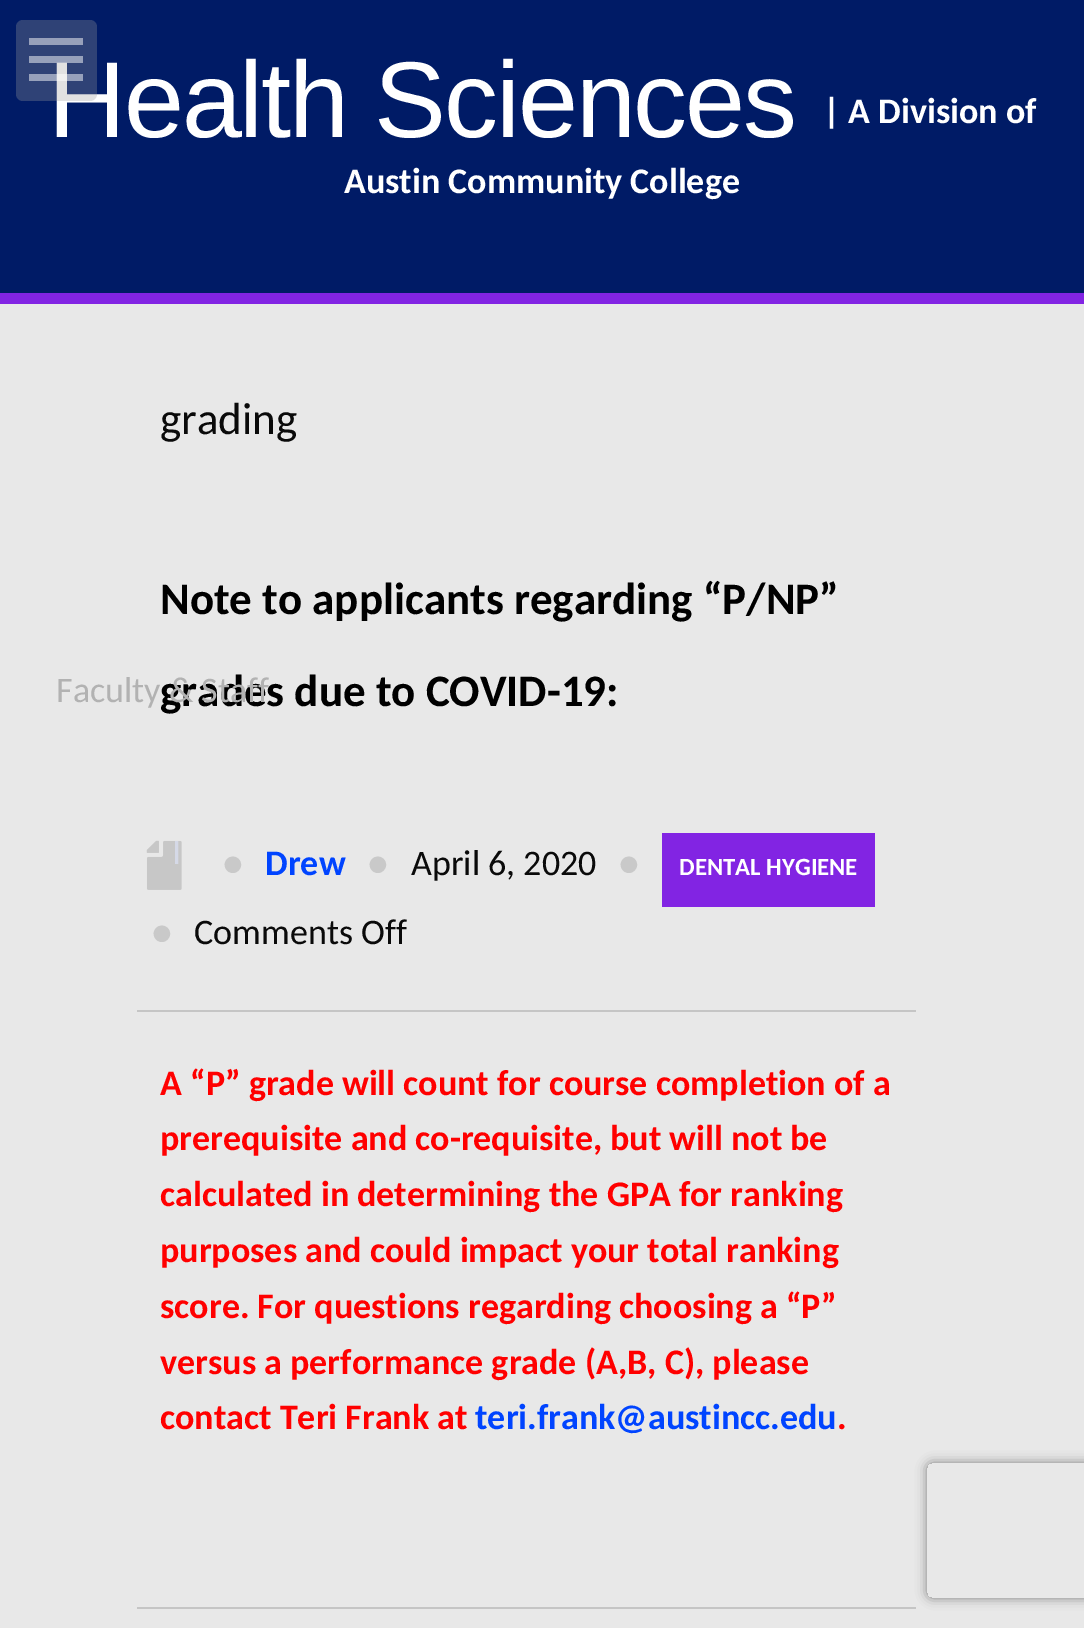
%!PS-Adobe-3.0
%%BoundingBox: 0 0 1084 1628
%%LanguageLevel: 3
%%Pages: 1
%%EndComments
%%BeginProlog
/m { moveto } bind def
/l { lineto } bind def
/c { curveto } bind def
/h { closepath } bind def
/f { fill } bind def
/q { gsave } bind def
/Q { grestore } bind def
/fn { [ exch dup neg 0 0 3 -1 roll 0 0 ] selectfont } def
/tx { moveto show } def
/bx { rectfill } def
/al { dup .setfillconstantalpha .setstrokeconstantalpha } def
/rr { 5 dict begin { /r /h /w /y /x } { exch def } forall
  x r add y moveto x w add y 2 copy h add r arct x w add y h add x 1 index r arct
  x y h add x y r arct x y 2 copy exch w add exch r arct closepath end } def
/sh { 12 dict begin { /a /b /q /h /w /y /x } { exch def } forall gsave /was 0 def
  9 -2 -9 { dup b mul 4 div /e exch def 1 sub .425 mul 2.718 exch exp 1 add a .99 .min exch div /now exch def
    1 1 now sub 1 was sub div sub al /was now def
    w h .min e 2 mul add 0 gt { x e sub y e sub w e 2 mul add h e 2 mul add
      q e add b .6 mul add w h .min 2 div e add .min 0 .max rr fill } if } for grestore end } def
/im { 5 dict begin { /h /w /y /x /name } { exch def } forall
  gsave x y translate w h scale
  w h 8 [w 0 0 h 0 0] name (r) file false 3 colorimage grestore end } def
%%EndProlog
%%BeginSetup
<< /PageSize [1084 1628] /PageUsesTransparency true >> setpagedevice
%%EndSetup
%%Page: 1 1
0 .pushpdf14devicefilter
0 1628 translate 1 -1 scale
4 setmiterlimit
0.91 setgray
0 0 1084 1628 bx
0 0.106 0.4 setrgbcolor
0 0 1084 293 bx
/LiberationSans-Regular 108 fn
1 setgray
48 137 m -2.25 0 (Health Sciences) ashow
/Carlito-Bold 36 fn
(| A Division of) 823 123 tx
(Austin Community College) 344 193 tx
0.51 0.141 0.89 setrgbcolor
0 293 1084 11 bx
0.3 al
0.608 setgray
16 20 81 81 7 rr f
0.5 al
1 setgray
29 74 54 7 bx
29 56 54 7 bx
1 al
0.592 0.627 0.729 setrgbcolor
29 38 54 7 bx
/Carlito-Bold 45 fn
0 setgray
(grades due to COVID-19:) 160 706 tx
/Carlito-Regular 36 fn
0.698 setgray
(Faculty & Staff) 56 702 tx
(image0.raw) 146 840 36 50 im
0.835 0.851 0.906 setrgbcolor
(I) 172 864 tx
/Carlito-Regular 45 fn
0.039 setgray
(grading) 160 434 tx
/Carlito-Bold 45 fn
0 setgray
(Note to applicants regarding “P/NP”) 160 614 tx
/Carlito-Regular 36 fn
0.788 setgray
(●) 222 875 tx
/Carlito-Bold 36 fn
0 0.267 1 setrgbcolor
(Drew) 265 875 tx
/Carlito-Regular 36 fn
0.788 setgray
(●) 367 875 tx
0.039 setgray
(April 6, 2020) 411 875 tx
0.788 setgray
(●) 618 875 tx
0.51 0.141 0.89 setrgbcolor
662 833 213 74 bx
/Carlito-Bold 24.75 fn
1 setgray
(DENTAL HYGIENE) 679 875 tx
/Carlito-Regular 36 fn
0.788 setgray
(●) 151 944 tx
0.039 setgray
(Comments Off) 194 944 tx
0.773 setgray
137 1010 779 2 bx
/Carlito-Bold 36 fn
1 0 0 setrgbcolor
(A “P” grade will count for course completion of a) 160 1095 tx
(prerequisite and co-requisite, but will not be) 160 1150 tx
(calculated in determining the GPA for ranking) 160 1206 tx
(purposes and could impact your total ranking) 160 1262 tx
(score. For questions regarding choosing a “P”) 160 1318 tx
(versus a performance grade \(A,B, C\), please) 160 1374 tx
(contact Teri Frank at) 160 1429 tx
0 0.267 1 setrgbcolor
(teri.frank@austincc.edu) 475 1429 tx
1 0 0 setrgbcolor
(.) 837 1429 tx
0.773 setgray
137 1607 779 2 bx
q
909 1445 m 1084 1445 l 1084 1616 l 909 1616 l h 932 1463 m 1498 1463 l 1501 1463 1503 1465 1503 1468 c 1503 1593 l 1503 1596 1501 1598 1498 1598 c 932 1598 l 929 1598 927 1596 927 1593 c 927 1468 l 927 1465 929 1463 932 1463 c h eoclip newpath
0.502 setgray
927 1463 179 135 5 5.5 1 sh
Q
.poppdf14devicefilter showpage
%%EOF
